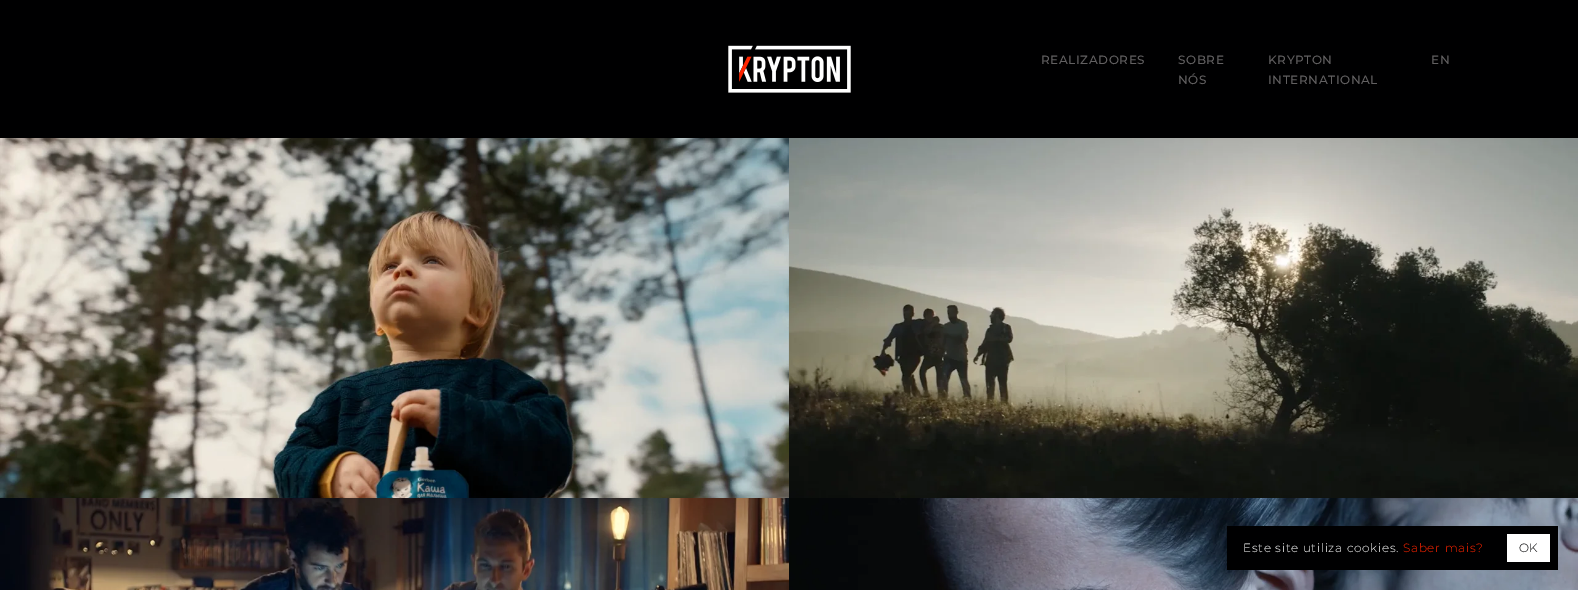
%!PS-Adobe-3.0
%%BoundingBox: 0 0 1578 590
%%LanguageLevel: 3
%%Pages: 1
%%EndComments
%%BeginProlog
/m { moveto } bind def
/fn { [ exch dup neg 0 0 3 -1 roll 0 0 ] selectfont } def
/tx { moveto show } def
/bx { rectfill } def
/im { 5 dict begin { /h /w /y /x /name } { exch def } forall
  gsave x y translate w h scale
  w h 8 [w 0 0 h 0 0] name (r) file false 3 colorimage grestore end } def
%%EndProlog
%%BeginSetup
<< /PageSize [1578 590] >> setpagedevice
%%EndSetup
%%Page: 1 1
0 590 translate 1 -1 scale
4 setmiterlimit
0 0 0.004 setrgbcolor
0 0 1578 590 bx
(image0.raw) 728 45 123 48 im
/Montserrat-Medium 12 fn
0.384 0.376 0.38 setrgbcolor
1041 64 m 0.6 0 (REALIZADORES) ashow
1178 64 m 0.6 0 (SOBRE) ashow
1178 84 m 0.6 0 (NÓS) ashow
1268 64 m 0.6 0 (KRYPTON) ashow
1268 84 m 0.6 0 (INTERNATIONAL) ashow
1431 64 m 0.6 0 (EN) ashow
(image1.raw) 0 138 789 360 im
(image2.raw) 789 138 789 360 im
(image3.raw) 0 498 789 92 im
(image4.raw) 789 498 789 92 im
0 0 0.004 setrgbcolor
1227 526 331 44 bx
/Montserrat-Light 12 fn
1 setgray
1243 552 m 0.7 0 (Este site utiliza cookies.) ashow
1 0.141 0 setrgbcolor
1403 552 m 0.7 0 (Saber mais?) ashow
1 setgray
1507 534 43 28 bx
0 0 0.004 setrgbcolor
(OK) 1519 552 tx
showpage
%%EOF
